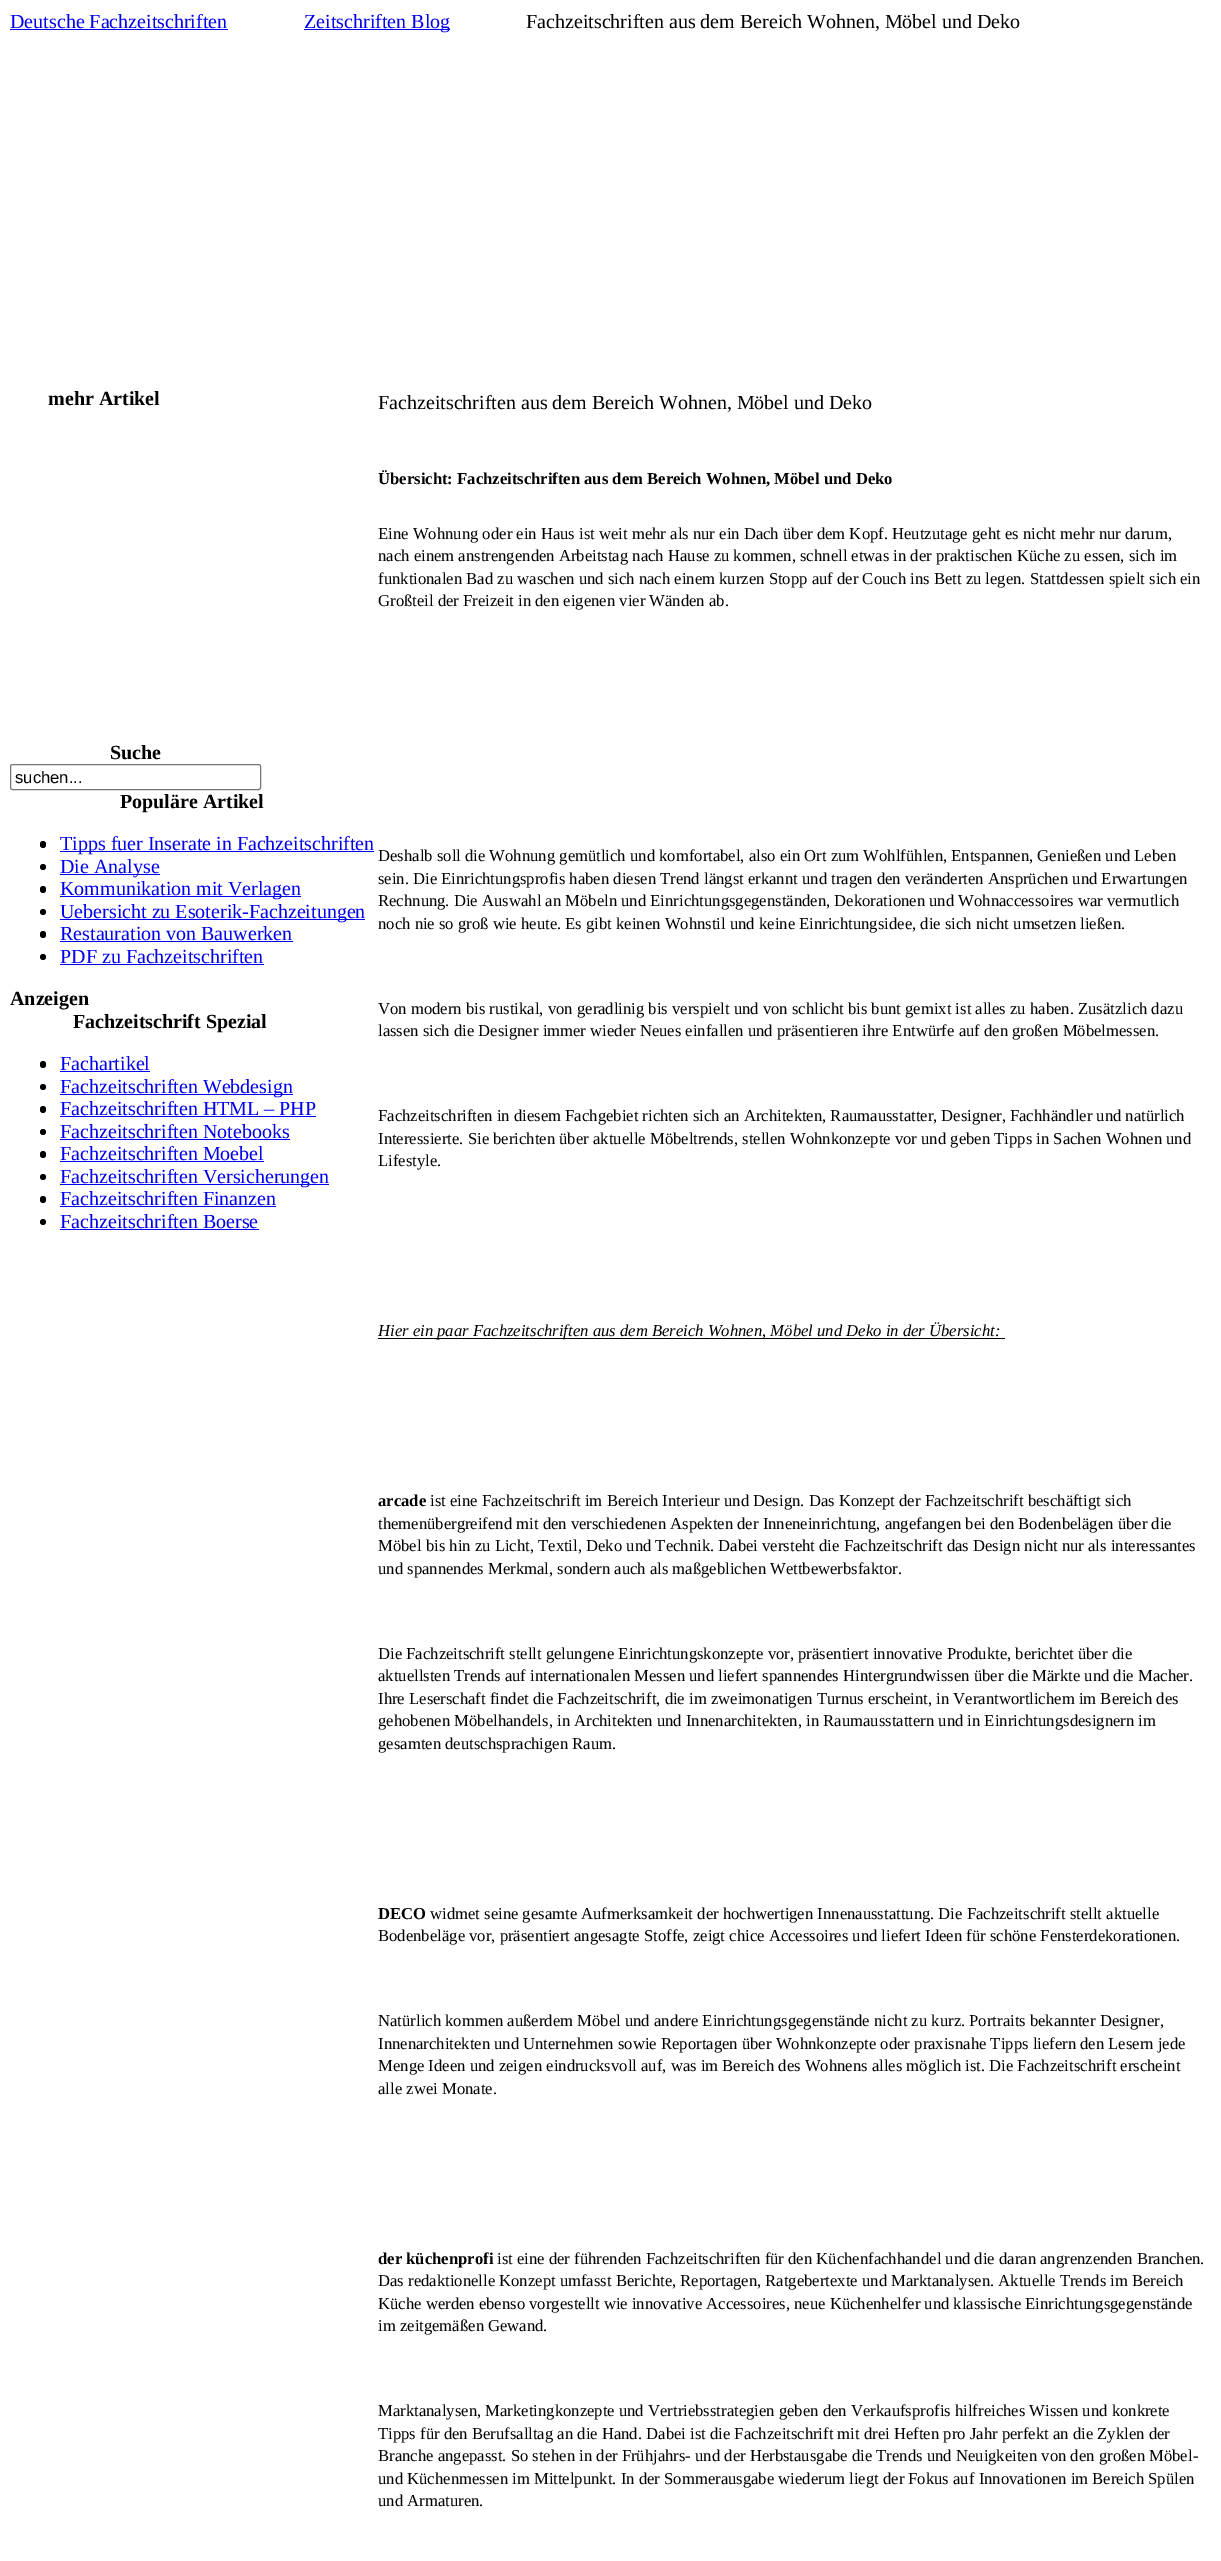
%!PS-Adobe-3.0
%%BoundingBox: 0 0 1221 2561
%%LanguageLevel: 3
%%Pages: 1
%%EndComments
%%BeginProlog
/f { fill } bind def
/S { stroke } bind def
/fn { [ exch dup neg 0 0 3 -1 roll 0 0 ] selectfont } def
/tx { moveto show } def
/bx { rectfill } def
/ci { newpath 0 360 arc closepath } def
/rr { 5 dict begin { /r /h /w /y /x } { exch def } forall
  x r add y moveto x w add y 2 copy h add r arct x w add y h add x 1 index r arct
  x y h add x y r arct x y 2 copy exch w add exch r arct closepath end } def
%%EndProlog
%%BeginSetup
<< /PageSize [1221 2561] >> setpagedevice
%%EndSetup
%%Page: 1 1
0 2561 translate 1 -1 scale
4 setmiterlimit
1 setgray
0 0 1221 2561 bx
/LiberationSerif-Regular 20 fn
0 0 0.933 setrgbcolor
(Deutsche Fachzeitschriften) 10 28 tx
10 29 218 1 bx
304 29 146 1 bx
(Zeitschriften Blog) 304 28 tx
0 setgray
(Fachzeitschriften aus dem Bereich Wohnen, Möbel und Deko) 526 28 tx
/LiberationSerif-Bold 20 fn
(mehr Artikel) 48 405 tx
(Suche) 110 759 tx
0.463 setgray
10.5 764.5 250 25 2 rr S
/LiberationSans-Regular 16.65 fn
0 setgray
(suchen...) 15 783 tx
/LiberationSerif-Bold 20 fn
(Populäre Artikel) 120 808 tx
40 841 6 7 3 rr f
0 0 0.933 setrgbcolor
60 851 314 1 bx
/LiberationSerif-Regular 20 fn
(Tipps fuer Inserate in Fachzeitschriften) 60 850 tx
0 setgray
43 867 3 ci f
0 0 0.933 setrgbcolor
60 874 100 1 bx
(Die Analyse) 60 873 tx
0 setgray
40 886 6 7 3 rr f
0 0 0.933 setrgbcolor
60 896 241 1 bx
(Kommunikation mit Verlagen) 60 895 tx
0 setgray
43 912 3 ci f
0 0 0.933 setrgbcolor
60 919 305 1 bx
(Uebersicht zu Esoterik-Fachzeitungen) 60 918 tx
0 setgray
40 931 6 7 3 rr f
0 0 0.933 setrgbcolor
(Restauration von Bauwerken) 60 940 tx
60 941 233 1 bx
0 setgray
43 957 3 ci f
0 0 0.933 setrgbcolor
(PDF zu Fachzeitschriften) 60 963 tx
60 964 204 1 bx
/LiberationSerif-Bold 20 fn
0 setgray
(Anzeigen) 10 1005 tx
(Fachzeitschrift Spezial) 73 1028 tx
40 1061 6 7 3 rr f
/LiberationSerif-Regular 20 fn
0 0 0.933 setrgbcolor
(Fachartikel) 60 1070 tx
60 1071 90 1 bx
0 setgray
43 1087 3 ci f
0 0 0.933 setrgbcolor
60 1094 233 1 bx
(Fachzeitschriften Webdesign) 60 1093 tx
0 setgray
40 1106 6 7 3 rr f
0 0 0.933 setrgbcolor
(Fachzeitschriften HTML – PHP) 60 1115 tx
60 1116 256 1 bx
0 setgray
43 1132 3 ci f
0 0 0.933 setrgbcolor
(Fachzeitschriften Notebooks) 60 1138 tx
60 1139 230 1 bx
0 setgray
40 1151 6 7 3 rr f
0 0 0.933 setrgbcolor
(Fachzeitschriften Moebel) 60 1160 tx
60 1161 204 1 bx
0 setgray
43 1177 3 ci f
0 0 0.933 setrgbcolor
60 1184 269 1 bx
(Fachzeitschriften Versicherungen) 60 1183 tx
0 setgray
40 1196 6 7 3 rr f
0 0 0.933 setrgbcolor
(Fachzeitschriften Finanzen) 60 1205 tx
60 1206 216 1 bx
0 setgray
43 1222 3 ci f
0 0 0.933 setrgbcolor
(Fachzeitschriften Boerse) 60 1228 tx
60 1229 199 1 bx
0 setgray
(Fachzeitschriften aus dem Bereich Wohnen, Möbel und Deko) 378 409 tx
/LiberationSerif-Bold 16.65 fn
(Übersicht: Fachzeitschriften aus dem Bereich Wohnen, Möbel und Deko) 378 484 tx
/LiberationSerif-Regular 16.65 fn
(Eine Wohnung oder ein Haus ist weit mehr als nur ein Dach über dem Kopf. Heutzutage geht es nicht mehr nur darum,) 378 539 tx
(nach einem anstrengenden Arbeitstag nach Hause zu kommen, schnell etwas in der praktischen Küche zu essen, sich im) 378 561 tx
(funktionalen Bad zu waschen und sich nach einem kurzen Stopp auf der Couch ins Bett zu legen. Stattdessen spielt sich ein) 378 584 tx
(Großteil der Freizeit in den eigenen vier Wänden ab.) 378 606 tx
(Deshalb soll die Wohnung gemütlich und komfortabel, also ein Ort zum Wohlfühlen, Entspannen, Genießen und Leben) 378 861 tx
(sein. Die Einrichtungsprofis haben diesen Trend längst erkannt und tragen den veränderten Ansprüchen und Erwartungen) 378 884 tx
(Rechnung. Die Auswahl an Möbeln und Einrichtungsgegenständen, Dekorationen und Wohnaccessoires war vermutlich) 378 906 tx
(noch nie so groß wie heute. Es gibt keinen Wohnstil und keine Einrichtungsidee, die sich nicht umsetzen ließen.) 378 929 tx
(Von modern bis rustikal, von geradlinig bis verspielt und von schlicht bis bunt gemixt ist alles zu haben. Zusätzlich dazu) 378 1014 tx
(lassen sich die Designer immer wieder Neues einfallen und präsentieren ihre Entwürfe auf den großen Möbelmessen.) 378 1036 tx
(Fachzeitschriften in diesem Fachgebiet richten sich an Architekten, Raumausstatter, Designer, Fachhändler und natürlich) 378 1121 tx
(Interessierte. Sie berichten über aktuelle Möbeltrends, stellen Wohnkonzepte vor und geben Tipps in Sachen Wohnen und) 378 1144 tx
(Lifestyle.) 378 1166 tx
378 1338 627 1 bx
/LiberationSerif-Italic 16.65 fn
(Hier ein paar Fachzeitschriften aus dem Bereich Wohnen, Möbel und Deko in der Übersicht:) 378 1336 tx
/LiberationSerif-Bold 16.65 fn
(arcade) 378 1506 tx
/LiberationSerif-Regular 16.65 fn
(ist eine Fachzeitschrift im Bereich Interieur und Design. Das Konzept der Fachzeitschrift beschäftigt sich) 430 1506 tx
(themenübergreifend mit den verschiedenen Aspekten der Inneneinrichtung, angefangen bei den Bodenbelägen über die) 378 1529 tx
(Möbel bis hin zu Licht, Textil, Deko und Technik. Dabei versteht die Fachzeitschrift das Design nicht nur als interessantes) 378 1551 tx
(und spannendes Merkmal, sondern auch als maßgeblichen Wettbewerbsfaktor.) 378 1574 tx
(Die Fachzeitschrift stellt gelungene Einrichtungskonzepte vor, präsentiert innovative Produkte, berichtet über die) 378 1659 tx
(aktuellsten Trends auf internationalen Messen und liefert spannendes Hintergrundwissen über die Märkte und die Macher.) 378 1681 tx
(Ihre Leserschaft findet die Fachzeitschrift, die im zweimonatigen Turnus erscheint, in Verantwortlichem im Bereich des) 378 1704 tx
(gehobenen Möbelhandels, in Architekten und Innenarchitekten, in Raumausstattern und in Einrichtungsdesignern im) 378 1726 tx
(gesamten deutschsprachigen Raum.) 378 1749 tx
/LiberationSerif-Bold 16.65 fn
(DECO) 378 1919 tx
/LiberationSerif-Regular 16.65 fn
(widmet seine gesamte Aufmerksamkeit der hochwertigen Innenausstattung. Die Fachzeitschrift stellt aktuelle) 430 1919 tx
(Bodenbeläge vor, präsentiert angesagte Stoffe, zeigt chice Accessoires und liefert Ideen für schöne Fensterdekorationen.) 378 1941 tx
(Natürlich kommen außerdem Möbel und andere Einrichtungsgegenstände nicht zu kurz. Portraits bekannter Designer,) 378 2026 tx
(Innenarchitekten und Unternehmen sowie Reportagen über Wohnkonzepte oder praxisnahe Tipps liefern den Lesern jede) 378 2049 tx
(Menge Ideen und zeigen eindrucksvoll auf, was im Bereich des Wohnens alles möglich ist. Die Fachzeitschrift erscheint) 378 2071 tx
(alle zwei Monate.) 378 2094 tx
/LiberationSerif-Bold 16.65 fn
(der küchenprofi) 378 2264 tx
/LiberationSerif-Regular 16.65 fn
(ist eine der führenden Fachzeitschriften für den Küchenfachhandel und die daran angrenzenden Branchen.) 497 2264 tx
(Das redaktionelle Konzept umfasst Berichte, Reportagen, Ratgebertexte und Marktanalysen. Aktuelle Trends im Bereich) 378 2286 tx
(Küche werden ebenso vorgestellt wie innovative Accessoires, neue Küchenhelfer und klassische Einrichtungsgegenstände) 378 2309 tx
(im zeitgemäßen Gewand.) 378 2331 tx
(Marktanalysen, Marketingkonzepte und Vertriebsstrategien geben den Verkaufsprofis hilfreiches Wissen und konkrete) 378 2416 tx
(Tipps für den Berufsalltag an die Hand. Dabei ist die Fachzeitschrift mit drei Heften pro Jahr perfekt an die Zyklen der) 378 2439 tx
(Branche angepasst. So stehen in der Frühjahrs- und der Herbstausgabe die Trends und Neuigkeiten von den großen Möbel-) 378 2461 tx
(und Küchenmessen im Mittelpunkt. In der Sommerausgabe wiederum liegt der Fokus auf Innovationen im Bereich Spülen) 378 2484 tx
(und Armaturen.) 378 2506 tx
showpage
%%EOF
